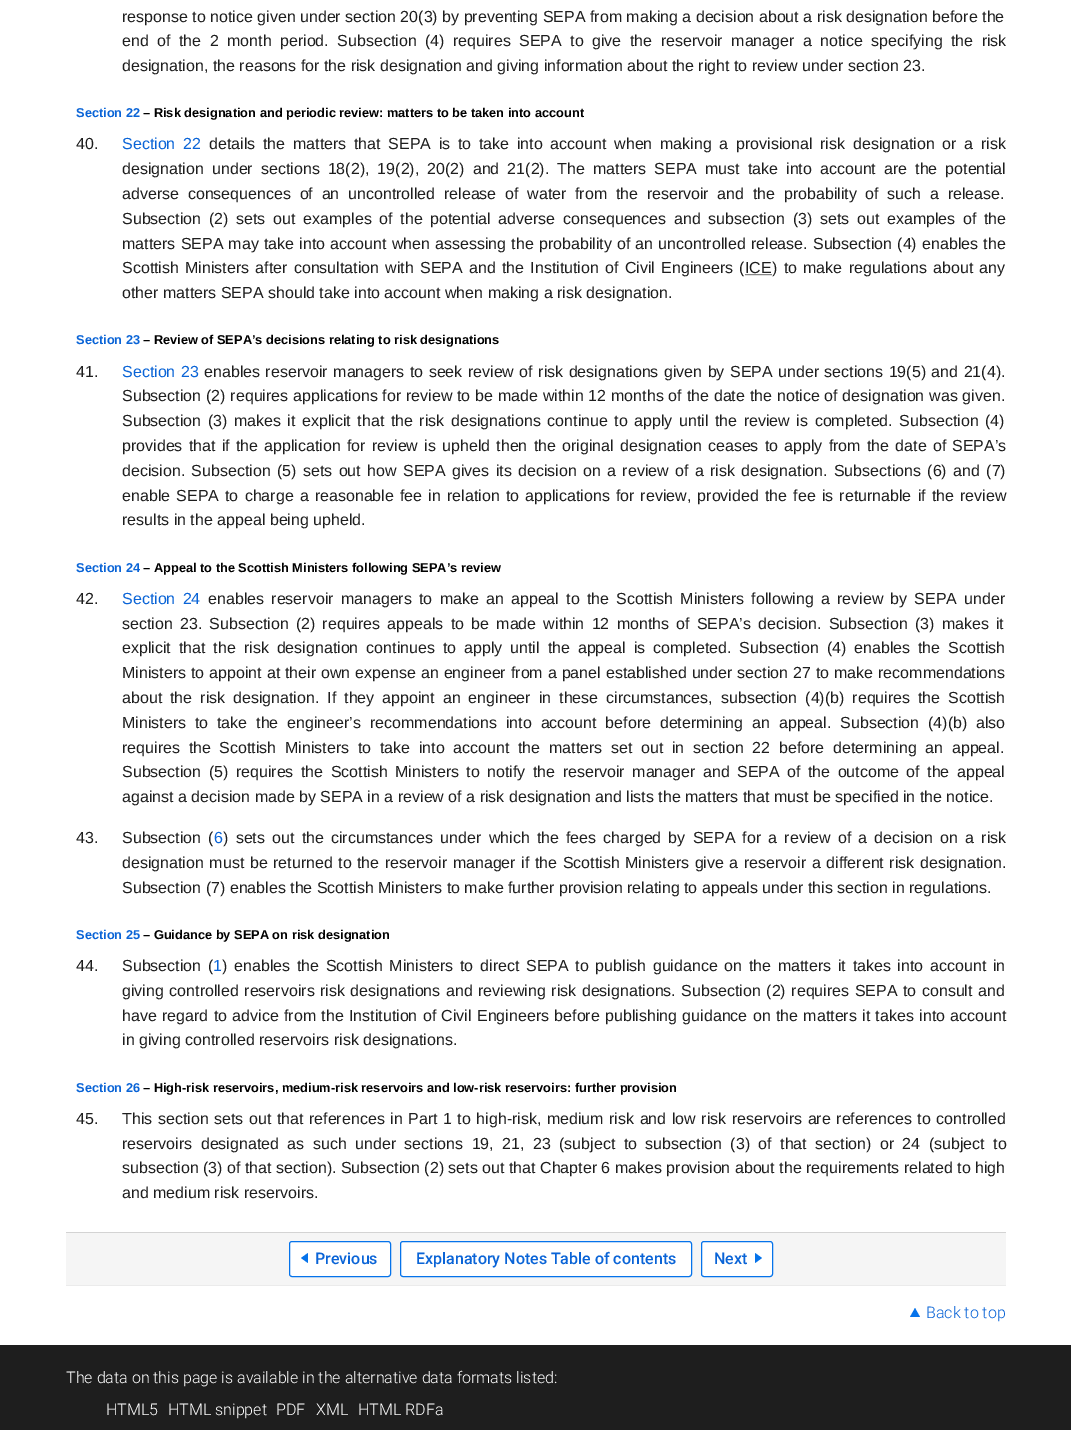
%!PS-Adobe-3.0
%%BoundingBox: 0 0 1071 1430
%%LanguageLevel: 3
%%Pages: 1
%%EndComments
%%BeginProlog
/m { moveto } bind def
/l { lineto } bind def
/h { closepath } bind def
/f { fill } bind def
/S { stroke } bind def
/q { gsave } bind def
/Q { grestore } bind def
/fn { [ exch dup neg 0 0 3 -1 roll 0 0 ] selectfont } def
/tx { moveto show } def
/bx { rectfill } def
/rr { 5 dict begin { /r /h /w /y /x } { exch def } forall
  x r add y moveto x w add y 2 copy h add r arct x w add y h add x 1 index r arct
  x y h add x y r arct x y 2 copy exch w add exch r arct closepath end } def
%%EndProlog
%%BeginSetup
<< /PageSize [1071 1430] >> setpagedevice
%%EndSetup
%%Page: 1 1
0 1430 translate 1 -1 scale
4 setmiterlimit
1 setgray
0 0 1071 1430 bx
/LiberationSans-Regular 16 fn
0.118 setgray
(response to notice given under section 20\(3\) by preventing SEPA from making a decision about a risk designation before the) 122 22 tx
122 46 m 4 0 32 (end of the 2 month period. Subsection \(4\) requires SEPA to give the reservoir manager a notice specifying the risk) widthshow
(designation, the reasons for the risk designation and giving information about the right to review under section 23.) 122 71 tx
/LiberationSans-Bold 12.8 fn
0.039 0.392 0.843 setrgbcolor
(Section 22) 76 117 tx
0 setgray
(– Risk designation and periodic review: matters to be taken into account) 143 117 tx
/LiberationSans-Regular 16 fn
0.118 setgray
(40.) 76 149 tx
0.039 0.392 0.843 setrgbcolor
122 149 m 3.25 0 32 (Section 22) widthshow
0.118 setgray
209 149 m 3.25 0 32 (details the matters that SEPA is to take into account when making a provisional risk designation or a risk) widthshow
122 174 m 3.6 0 32 (designation under sections 18\(2\), 19\(2\), 20\(2\) and 21\(2\). The matters SEPA must take into account are the potential) widthshow
122 199 m 4.25 0 32 (adverse consequences of an uncontrolled release of water from the reservoir and the probability of such a release.) widthshow
122 224 m 3.25 0 32 (Subsection \(2\) sets out examples of the potential adverse consequences and subsection \(3\) sets out examples of the) widthshow
122 249 m 0.75 0 32 (matters SEPA may take into account when assessing the probability of an uncontrolled release. Subsection \(4\) enables the) widthshow
122 273 m 1.8 0 32 (Scottish Ministers after consultation with SEPA and the Institution of Civil Engineers \() widthshow
(ICE) 745 273 tx
[1 1] 0 setdash
745.5 274.5 m 772 274.5 l S
772 273 m 1.8 0 32 (\) to make regulations about any) widthshow
(other matters SEPA should take into account when making a risk designation.) 122 298 tx
/LiberationSans-Bold 12.8 fn
0.039 0.392 0.843 setrgbcolor
(Section 23) 76 344 tx
0 setgray
(– Review of SEPA’s decisions relating to risk designations) 143 344 tx
/LiberationSans-Regular 16 fn
0.118 setgray
(41.) 76 377 tx
0.039 0.392 0.843 setrgbcolor
122 377 m 1 0 32 (Section 23) widthshow
0.118 setgray
204 377 m 1 0 32 (enables reservoir managers to seek review of risk designations given by SEPA under sections 19\(5\) and 21\(4\).) widthshow
122 401 m 0.4 0 32 (Subsection \(2\) requires applications for review to be made within 12 months of the date the notice of designation was given.) widthshow
122 426 m 2.1 0 32 (Subsection \(3\) makes it explicit that the risk designations continue to apply until the review is completed. Subsection \(4\)) widthshow
122 451 m 1.75 0 32 (provides that if the application for review is upheld then the original designation ceases to apply from the date of SEPA’s) widthshow
122 476 m 1.9 0 32 (decision. Subsection \(5\) sets out how SEPA gives its decision on a review of a risk designation. Subsections \(6\) and \(7\)) widthshow
122 501 m 1.7 0 32 (enable SEPA to charge a reasonable fee in relation to applications for review, provided the fee is returnable if the review) widthshow
(results in the appeal being upheld.) 122 525 tx
/LiberationSans-Bold 12.8 fn
0.039 0.392 0.843 setrgbcolor
(Section 24) 76 572 tx
0 setgray
(– Appeal to the Scottish Ministers following SEPA’s review) 143 572 tx
/LiberationSans-Regular 16 fn
0.118 setgray
(42.) 76 604 tx
0.039 0.392 0.843 setrgbcolor
122 604 m 2.75 0 32 (Section 24) widthshow
0.118 setgray
208 604 m 2.75 0 32 (enables reservoir managers to make an appeal to the Scottish Ministers following a review by SEPA under) widthshow
122 629 m 2.75 0 32 (section 23. Subsection \(2\) requires appeals to be made within 12 months of SEPA’s decision. Subsection \(3\) makes it) widthshow
122 653 m 3.5 0 32 (explicit that the risk designation continues to apply until the appeal is completed. Subsection \(4\) enables the Scottish) widthshow
122 678 m 0.5 0 32 (Ministers to appoint at their own expense an engineer from a panel established under section 27 to make recommendations) widthshow
122 703 m 3.5 0 32 (about the risk designation. If they appoint an engineer in these circumstances, subsection \(4\)\(b\) requires the Scottish) widthshow
122 728 m 4.4 0 32 (Ministers to take the engineer’s recommendations into account before determining an appeal. Subsection \(4\)\(b\) also) widthshow
122 753 m 4.25 0 32 (requires the Scottish Ministers to take into account the matters set out in section 22 before determining an appeal.) widthshow
122 777 m 3 0 32 (Subsection \(5\) requires the Scottish Ministers to notify the reservoir manager and SEPA of the outcome of the appeal) widthshow
(against a decision made by SEPA in a review of a risk designation and lists the matters that must be specified in the notice.) 122 802 tx
(43.) 76 843 tx
122 843 m 2.75 0 32 (Subsection \() widthshow
0.039 0.392 0.843 setrgbcolor
(6) 214 843 tx
0.118 setgray
223 843 m 2.75 0 32 (\) sets out the circumstances under which the fees charged by SEPA for a review of a decision on a risk) widthshow
122 868 m 1.1 0 32 (designation must be returned to the reservoir manager if the Scottish Ministers give a reservoir a different risk designation.) widthshow
(Subsection \(7\) enables the Scottish Ministers to make further provision relating to appeals under this section in regulations.) 122 893 tx
/LiberationSans-Bold 12.8 fn
0.039 0.392 0.843 setrgbcolor
(Section 25) 76 939 tx
0 setgray
(– Guidance by SEPA on risk designation) 143 939 tx
/LiberationSans-Regular 16 fn
0.118 setgray
(44.) 76 971 tx
122 971 m 2.25 0 32 (Subsection \() widthshow
0.039 0.392 0.843 setrgbcolor
(1) 213 971 tx
0.118 setgray
222 971 m 2.25 0 32 (\) enables the Scottish Ministers to direct SEPA to publish guidance on the matters it takes into account in) widthshow
122 996 m 1.1 0 32 (giving controlled reservoirs risk designations and reviewing risk designations. Subsection \(2\) requires SEPA to consult and) widthshow
122 1021 m 0.9 0 32 (have regard to advice from the Institution of Civil Engineers before publishing guidance on the matters it takes into account) widthshow
(in giving controlled reservoirs risk designations.) 122 1045 tx
/LiberationSans-Bold 12.8 fn
0.039 0.392 0.843 setrgbcolor
(Section 26) 76 1092 tx
0 setgray
(– High-risk reservoirs, medium-risk reservoirs and low-risk reservoirs: further provision) 143 1092 tx
/LiberationSans-Regular 16 fn
0.118 setgray
(45.) 76 1124 tx
122 1124 m 1.1 0 32 (This section sets out that references in Part 1 to high-risk, medium risk and low risk reservoirs are references to controlled) widthshow
122 1149 m 4 0 32 (reservoirs designated as such under sections 19, 21, 23 \(subject to subsection \(3\) of that section\) or 24 \(subject to) widthshow
(subsection \(3\) of that section\). Subsection \(2\) sets out that Chapter 6 makes provision about the requirements related to high) 122 1173 tx
(and medium risk reservoirs.) 122 1198 tx
0.961 setgray
66 1233 940 52 bx
0.827 setgray
66 1232 940 1 bx
0.922 setgray
66 1285 940 1 bx
1 setgray
289.5 1241.5 101 35 2.5 rr q f Q
0.02 0.451 0.922 setrgbcolor
[] 0 setdash
S
308 1253 m 308 1263 l 301 1258 l h f
/Roboto-Medium 16 fn
0.039 0.392 0.843 setrgbcolor
(Previous) 315 1264 tx
1 setgray
400.5 1241.5 291 35 2.5 rr q f Q
0.02 0.451 0.922 setrgbcolor
S
0.039 0.392 0.843 setrgbcolor
(Explanatory Notes Table of contents) 416 1264 tx
1 setgray
701.5 1241.5 71 35 2.5 rr q f Q
0.02 0.451 0.922 setrgbcolor
S
0.039 0.392 0.843 setrgbcolor
(Next) 714 1264 tx
0.02 0.451 0.922 setrgbcolor
755 1263 m 755 1253 l 762 1258 l h f
920 1317 m 910 1317 l 915 1308 l h f
/Roboto-Light 16 fn
0.039 0.392 0.843 setrgbcolor
(Back to top) 926 1318 tx
0.118 setgray
0 1345 1071 85 bx
1 setgray
(The data on this page is available in the alternative data formats listed:) 66 1383 tx
(HTML5) 106 1415 tx
(HTML snippet) 168 1415 tx
(PDF) 276 1415 tx
(XML) 316 1415 tx
(HTML RDFa) 358 1415 tx
showpage
%%EOF
